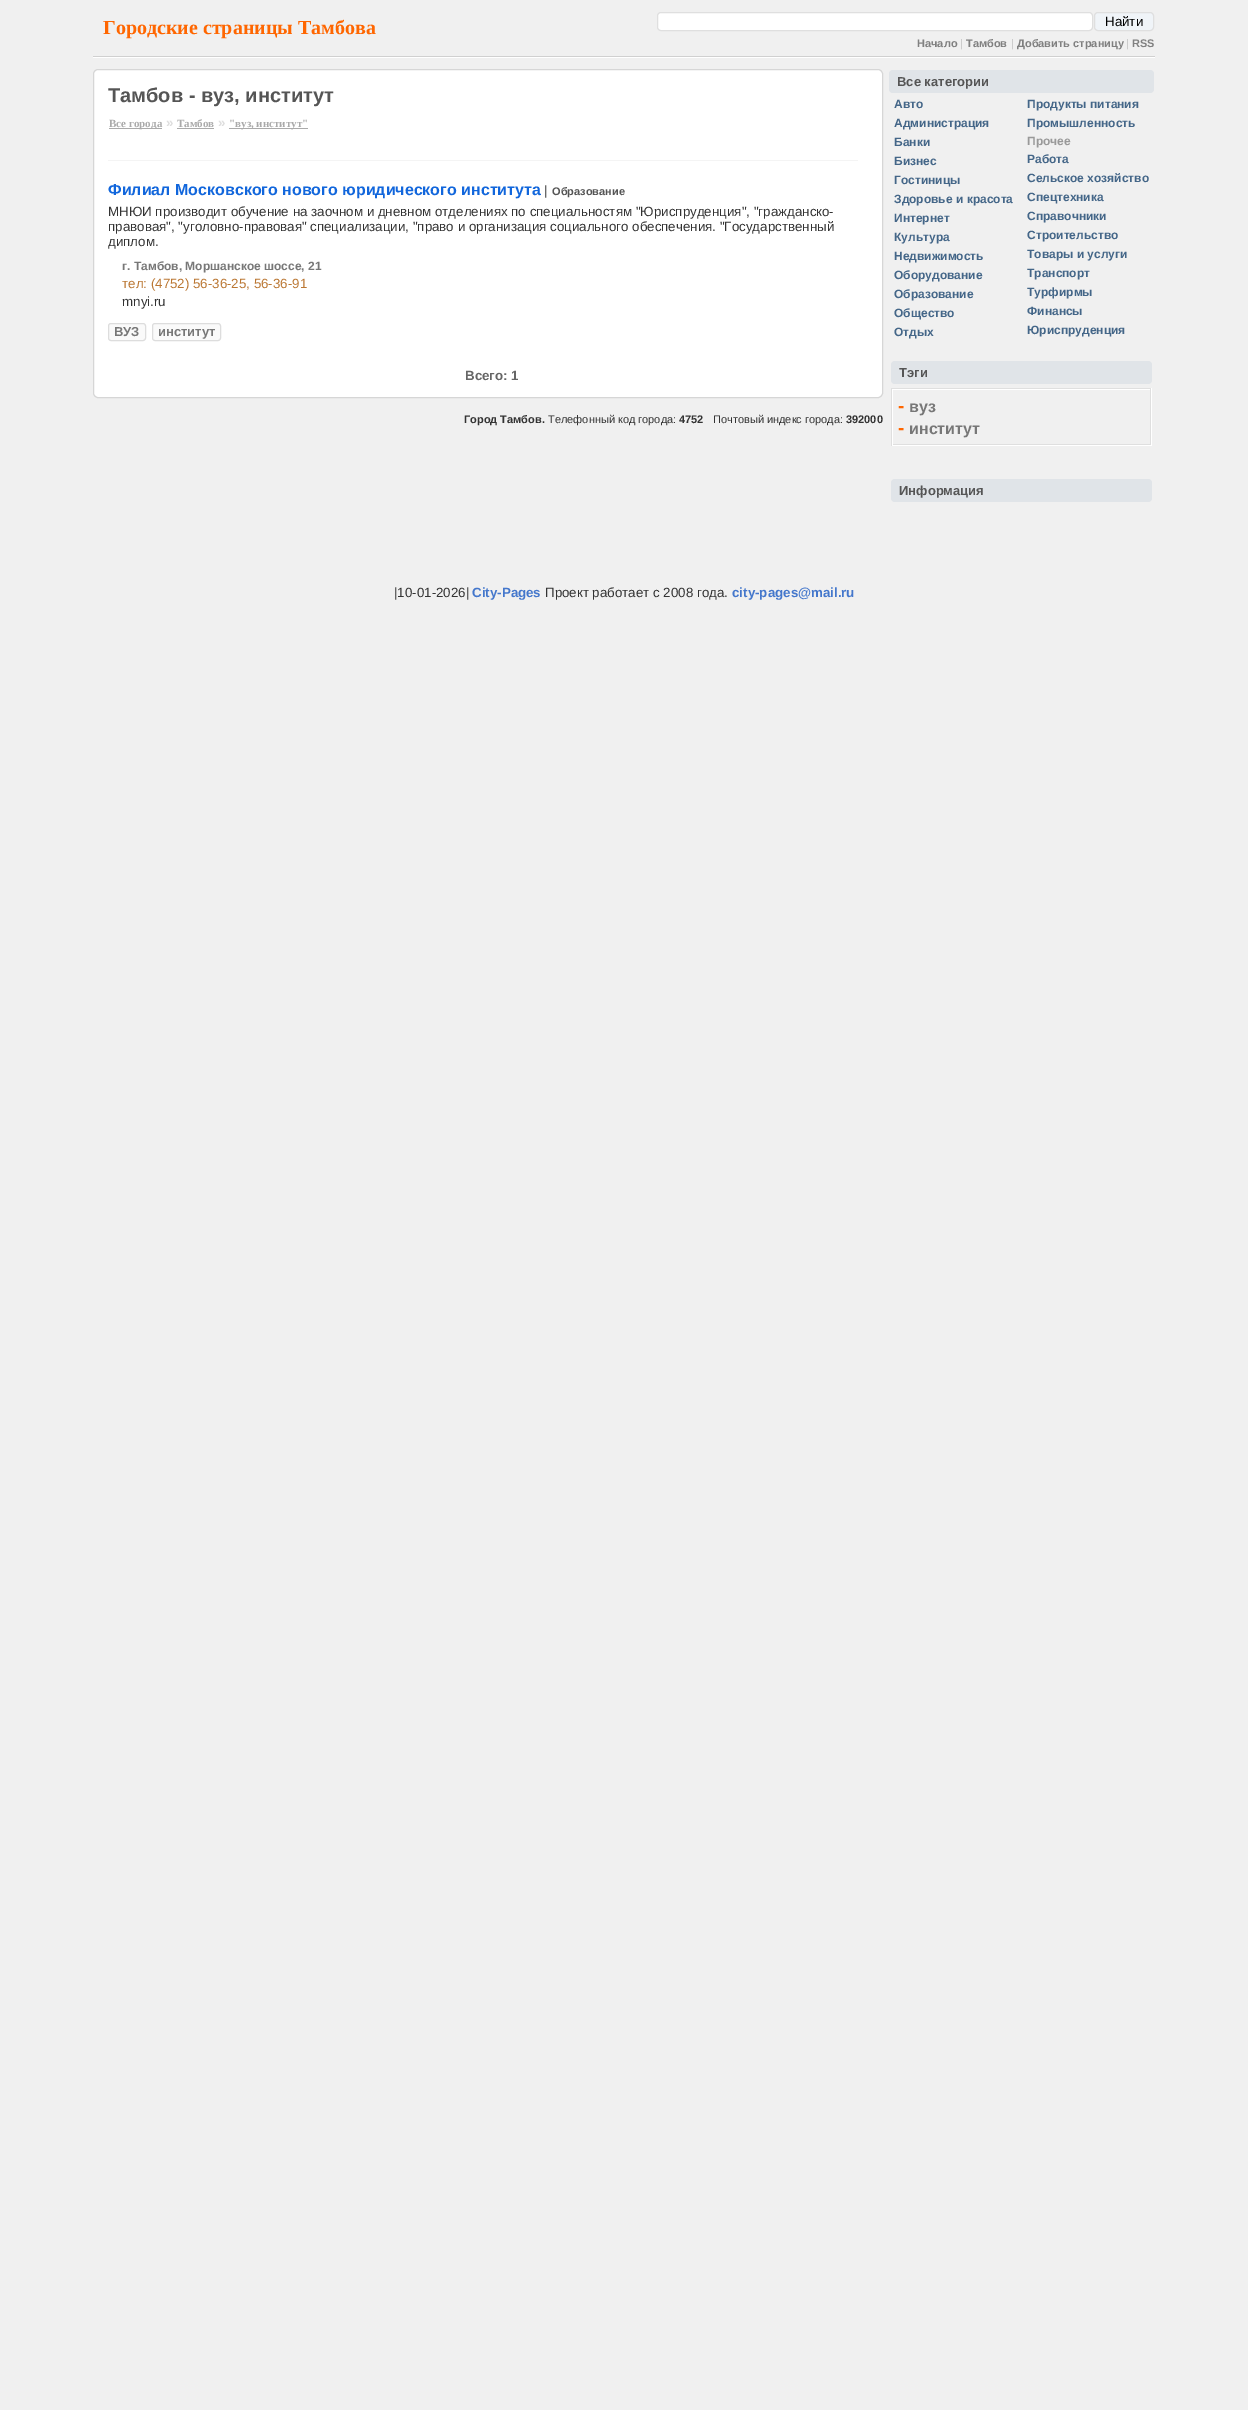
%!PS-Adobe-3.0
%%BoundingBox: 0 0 1248 2410
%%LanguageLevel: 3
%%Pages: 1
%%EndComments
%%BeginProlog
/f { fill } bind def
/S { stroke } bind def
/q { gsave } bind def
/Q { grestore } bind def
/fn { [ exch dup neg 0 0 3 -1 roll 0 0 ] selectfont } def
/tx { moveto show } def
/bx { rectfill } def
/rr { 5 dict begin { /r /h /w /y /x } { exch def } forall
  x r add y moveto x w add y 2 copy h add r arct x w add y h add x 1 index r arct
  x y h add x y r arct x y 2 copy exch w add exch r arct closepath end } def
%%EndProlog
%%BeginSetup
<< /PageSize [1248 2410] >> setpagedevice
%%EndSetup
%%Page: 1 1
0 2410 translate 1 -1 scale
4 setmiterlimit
0.941 setgray
0 0 1248 2410 bx
/LiberationSerif-Bold 20 fn
1 0.4 0 setrgbcolor
(Городские страницы Тамбова) 103 34 tx
1 setgray
657.5 12.5 435 18 3.5 rr q f Q
0.875 setgray
S
0.941 0.957 0.973 setrgbcolor
1094.5 12.5 59 18 3.5 rr q f Q
0.875 setgray
S
/LiberationSans-Regular 13.33 fn
0 setgray
(Найти) 1105 26 tx
/LiberationSans-Bold 11 fn
0.502 setgray
(Начало) 917 47 tx
/LiberationSans-Regular 11 fn
0.753 setgray
(|) 960 47 tx
/LiberationSans-Bold 11 fn
0.502 setgray
(Тамбов) 966 47 tx
/LiberationSans-Regular 11 fn
0.753 setgray
(|) 1011 47 tx
/LiberationSans-Bold 11 fn
0.502 setgray
(Добавить страницу) 1017 47 tx
/LiberationSans-Regular 11 fn
0.753 setgray
(|) 1126 47 tx
/LiberationSans-Bold 11 fn
0.502 setgray
(RSS) 1132 47 tx
0.816 setgray
93 56 1062 1 bx
1 setgray
93 57 1062 1 bx
93.5 69.5 789 328 4.5 rr q f Q
0.839 setgray
S
/LiberationSans-Bold 20 fn
0.333 setgray
(Тамбов - вуз, институт) 108 102 tx
0.667 setgray
109 128 53 1 bx
/LiberationSerif-Bold 11 fn
(Все города) 109 127 tx
/LiberationSans-Bold 13.33 fn
0.867 setgray
(») 166 127 tx
/LiberationSerif-Bold 11 fn
0.667 setgray
(Тамбов) 177 127 tx
177 128 37 1 bx
/LiberationSans-Bold 13.33 fn
0.867 setgray
(») 218 127 tx
0.667 setgray
229 128 79 1 bx
/LiberationSerif-Bold 11 fn
("вуз, институт") 229 127 tx
0.957 setgray
108 160 750 1 bx
/LiberationSans-Bold 16 fn
0.067 0.4 0.863 setrgbcolor
(Филиал Московского нового юридического института) 108 195 tx
/LiberationSans-Regular 13.33 fn
0.2 setgray
(|) 544 195 tx
/LiberationSans-Bold 11 fn
0.333 setgray
(Образование) 552 195 tx
/LiberationSans-Regular 13.33 fn
0.2 setgray
(МНЮИ производит обучение на заочном и дневном отделениях по специальностям "Юриспруденция", "гражданско-) 108 216 tx
(правовая", "уголовно-правовая" специализации, "право и организация социального обеспечения. "Государственный) 108 231 tx
(диплом.) 108 246 tx
/LiberationSans-Bold 12 fn
0.467 setgray
(г. Тамбов, Моршанское шоссе, 21) 122 270 tx
/LiberationSans-Regular 13.33 fn
0.733 0.467 0.2 setrgbcolor
(тел: \(4752\) 56-36-25, 56-36-91) 122 288 tx
0.2 setgray
(mnyi.ru) 122 306 tx
0.98 setgray
108.5 323.5 37 17 2.5 rr q f Q
0.867 setgray
S
/LiberationSans-Bold 13 fn
0.467 setgray
(ВУЗ) 114 336 tx
0.98 setgray
152.5 323.5 68 17 2.5 rr q f Q
0.867 setgray
S
0.467 setgray
(институт) 158 336 tx
/LiberationSans-Bold 13.33 fn
0.4 setgray
(Всего: 1) 465 380 tx
/LiberationSans-Bold 11 fn
0.2 setgray
(Город Тамбов.) 464 423 tx
/LiberationSans-Regular 11 fn
(Телефонный код города:) 548 423 tx
/LiberationSans-Bold 11 fn
(4752) 679 423 tx
/LiberationSans-Regular 11 fn
(Почтовый индекс города:) 713 423 tx
/LiberationSans-Bold 11 fn
(392000) 846 423 tx
0.878 0.894 0.91 setrgbcolor
889 70 265 23 4 rr f
/LiberationSans-Bold 13 fn
0.333 setgray
(Все категории) 897 86 tx
/LiberationSans-Bold 12 fn
0.267 0.4 0.533 setrgbcolor
(Авто) 894 108 tx
(Администрация) 894 127 tx
(Банки) 894 146 tx
(Бизнес) 894 165 tx
(Гостиницы) 894 184 tx
(Здоровье и красота) 894 203 tx
(Интернет) 894 222 tx
(Культура) 894 241 tx
(Недвижимость) 894 260 tx
(Оборудование) 894 279 tx
(Образование) 894 298 tx
(Общество) 894 317 tx
(Отдых) 894 336 tx
(Продукты питания) 1027 108 tx
(Промышленность) 1027 127 tx
0.6 setgray
(Прочее) 1027 145 tx
0.267 0.4 0.533 setrgbcolor
(Работа) 1027 163 tx
(Сельское хозяйство) 1027 182 tx
(Спецтехника) 1027 201 tx
(Справочники) 1027 220 tx
(Строительство) 1027 239 tx
(Товары и услуги) 1027 258 tx
(Транспорт) 1027 277 tx
(Турфирмы) 1027 296 tx
(Финансы) 1027 315 tx
(Юриспруденция) 1027 334 tx
0.878 0.894 0.91 setrgbcolor
891 361 261 23 4 rr f
/LiberationSans-Bold 13 fn
0.333 setgray
(Тэги) 899 377 tx
0.875 setgray
891 388 261 1 bx
1 setgray
1151 388 1 58 bx
891 445 261 1 bx
0.875 setgray
891 388 1 58 bx
1 setgray
892 389 259 1 bx
0.875 setgray
1150 389 1 56 bx
892 444 259 1 bx
1 setgray
892 389 1 56 bx
/LiberationSans-Bold 19 fn
1 0.4 0 setrgbcolor
(-) 898 412 tx
/LiberationSans-Bold 16 fn
0.467 setgray
(вуз) 909 412 tx
/LiberationSans-Bold 19 fn
1 0.4 0 setrgbcolor
(-) 898 434 tx
/LiberationSans-Bold 16 fn
0.467 setgray
(институт) 909 434 tx
0.878 0.894 0.91 setrgbcolor
891 479 261 23 4 rr f
/LiberationSans-Bold 13 fn
0.333 setgray
(Информация) 899 495 tx
/LiberationSans-Regular 13.33 fn
0.2 setgray
(|10-01-2026|) 394 597 tx
/LiberationSans-Bold 13.33 fn
0.267 0.467 0.8 setrgbcolor
(City-Pages) 472 597 tx
/LiberationSans-Regular 13.33 fn
0.2 setgray
(Проект работает с 2008 года.) 545 597 tx
/LiberationSans-Bold 13.33 fn
0.267 0.467 0.8 setrgbcolor
(city-pages@mail.ru) 732 597 tx
showpage
%%EOF
